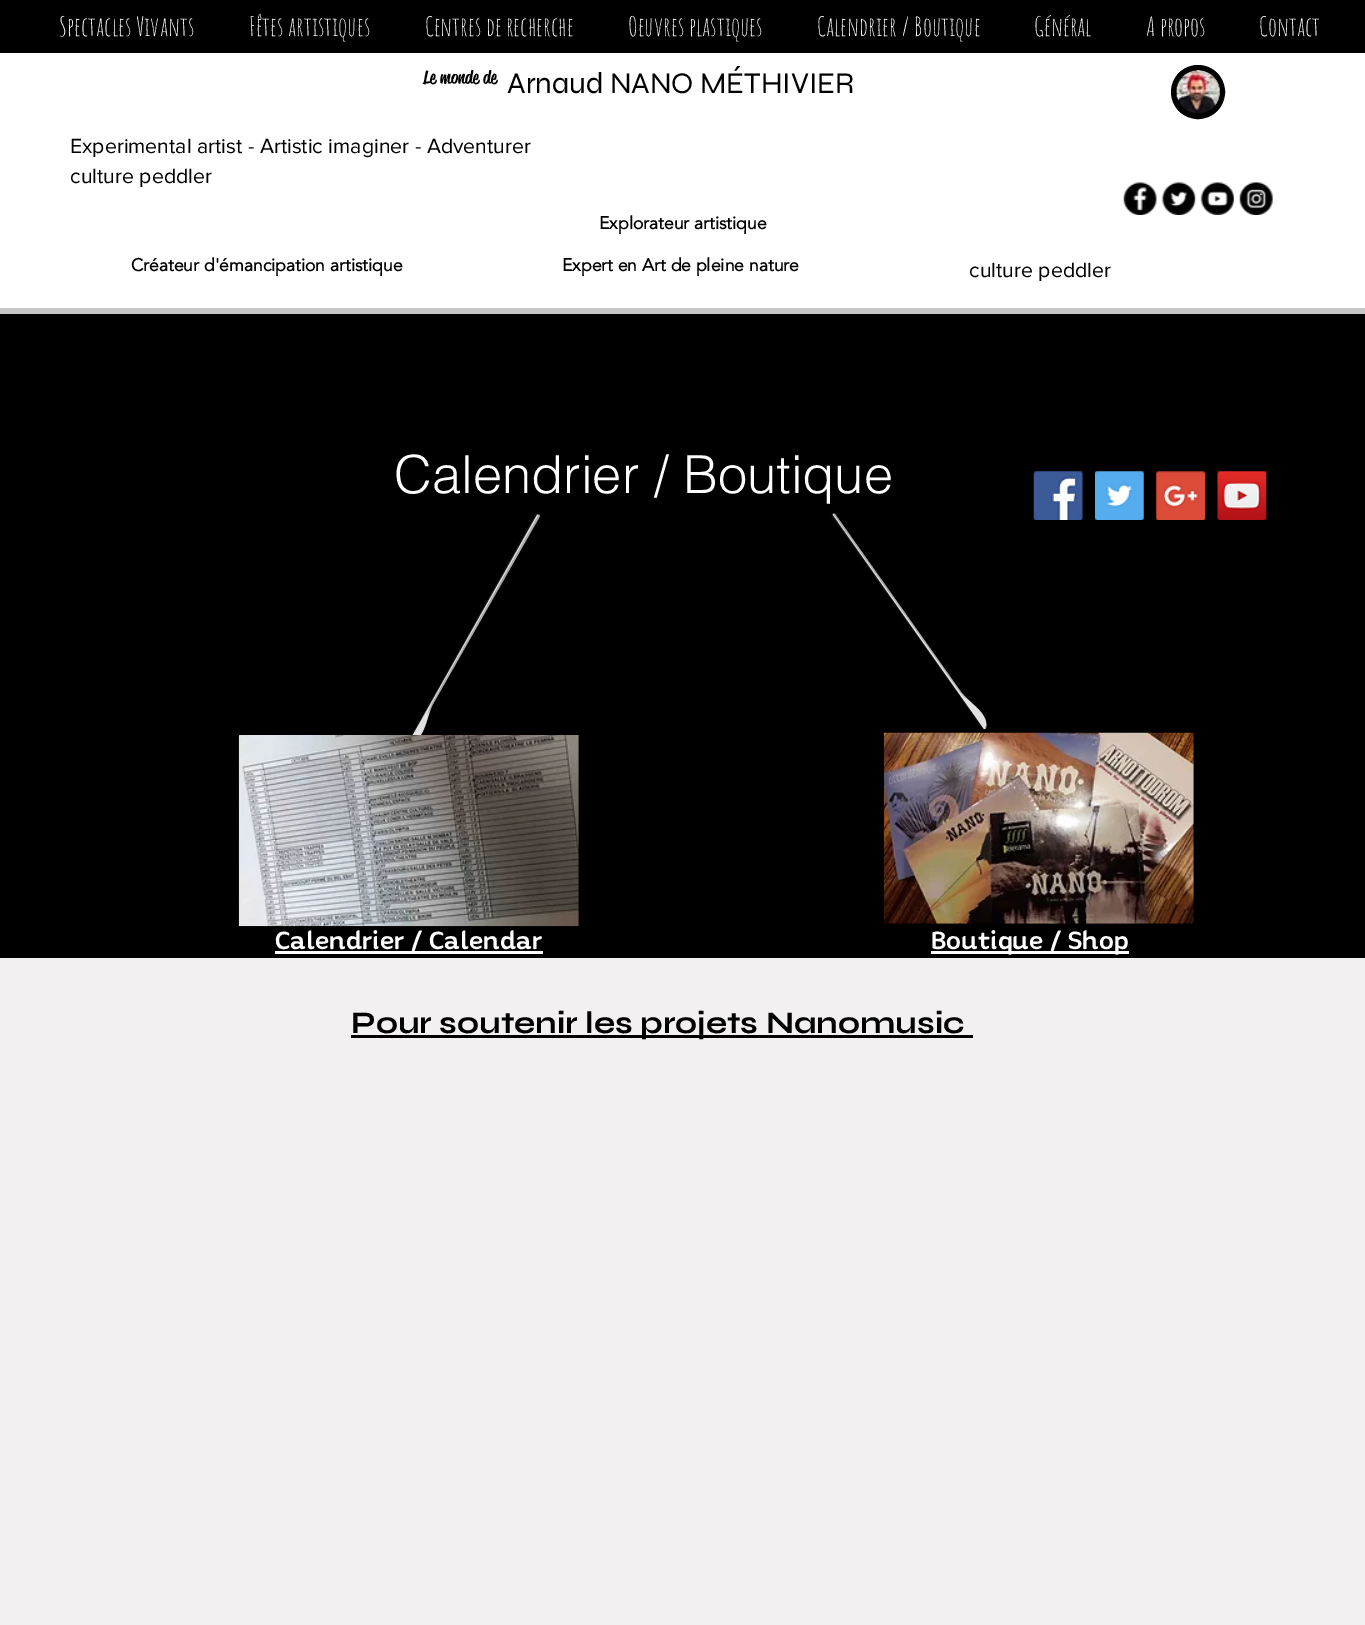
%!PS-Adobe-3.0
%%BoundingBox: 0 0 1365 1625
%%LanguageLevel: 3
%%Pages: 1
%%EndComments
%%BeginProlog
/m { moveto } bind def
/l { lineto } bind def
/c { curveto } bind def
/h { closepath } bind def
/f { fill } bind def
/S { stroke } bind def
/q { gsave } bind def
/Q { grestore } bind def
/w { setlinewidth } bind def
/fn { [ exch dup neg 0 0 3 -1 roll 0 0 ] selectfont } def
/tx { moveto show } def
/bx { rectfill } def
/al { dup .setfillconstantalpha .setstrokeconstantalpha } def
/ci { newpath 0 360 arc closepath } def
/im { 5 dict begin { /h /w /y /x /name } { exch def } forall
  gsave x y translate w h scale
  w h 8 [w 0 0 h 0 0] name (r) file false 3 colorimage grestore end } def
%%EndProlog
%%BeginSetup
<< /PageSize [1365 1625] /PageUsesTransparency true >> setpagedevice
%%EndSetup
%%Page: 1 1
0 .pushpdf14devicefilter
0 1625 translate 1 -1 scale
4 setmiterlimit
0 setgray
0 0 1365 1625 bx
/AmaticSC-Regular 26.25 fn
1 setgray
(Spectacles Vivants) 59 36 tx
(Fêtes artistiques) 249 36 tx
(Centres de recherche) 425 36 tx
(Oeuvres plastiques) 628 36 tx
(Calendrier / Boutique) 817 36 tx
(Général) 1034 36 tx
(A propos) 1146 36 tx
(Contact) 1259 36 tx
0 53 1365 255 bx
0.78 setgray
0 308 1365 6 bx
/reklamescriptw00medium-Medium 17.5 fn
0 setgray
(Le monde de) 423 83 tx
/Syne-Regular 30 fn
(Arnaud NANO MÉTHIVIER) 507 93 tx
1198 92 24.5 ci q f Q
5 w
S
(image0.raw) 1175 70 45 44 im
/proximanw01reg-Regular 21.25 fn
(Experimental artist - Artistic imaginer - Adventurer) 70 153 tx
(culture peddler) 70 183 tx
(image1.raw) 1123 182 34 33 im
(image2.raw) 1161 182 35 33 im
(image3.raw) 1200 182 34 33 im
(image4.raw) 1239 182 34 33 im
/Avenir-Bold 17.5 fn
(Explorateur artistique) 599 229 tx
(Créateur d'émancipation artistique) 131 271 tx
(Expert en Art de pleine nature) 562 271 tx
/proximanw01reg-Regular 21.25 fn
(culture peddler) 969 277 tx
/helvetica-Light 52.5 fn
1 setgray
(Calendrier / Boutique) 394 493 tx
(image5.raw) 1033 471 50 49 im
(image6.raw) 1095 471 49 49 im
(image7.raw) 1156 471 49 49 im
(image8.raw) 1217 471 50 49 im
0.102 setgray
538 514 m 537 515 l 410 741 l 409 742 408 741 409 740 c 536 514 l 537 513 538 514 538 514 c h 427 715 m 413 740 l 421 736 424 725 427 715 c h eofill
0.89 0.886 0.886 setrgbcolor
540 516 m 433 704 l 426 717 426 738 411 742 c 410 742 409 741 410 740 c 537 515 l 538 514 540 515 540 516 c h f
0.25 al
0 setgray
538 516 m 538 514 l 539 514 540 515 540 516 c 427 715 l 432 703 l h 413 740 m 410 741 l 410 744 413 741 413 740 c h eofill
1 al
0.102 setgray
966 699 m 985 726 l 985 714 974 706 966 699 c h 985 729 m 985 730 984 730 983 729 c 832 516 l 831 515 832 514 833 514 c 833 515 l h eofill
0.89 0.886 0.886 setrgbcolor
835 514 m 961 692 l 970 704 989 713 986 728 c 986 729 985 729 984 729 c 833 515 l 832 514 834 513 835 514 c h f
0.25 al
0 setgray
834 515 m 960 692 l 966 699 l 835 514 l 834 513 833 514 833 514 c h 985 726 m 985 729 l 987 729 986 727 985 726 c h eofill
1 al
(image9.raw) 238 735 341 192 im
(image10.raw) 883 732 311 192 im
/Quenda-Medium 27.5 fn
1 setgray
(Calendrier / Calendar) 275 949 tx
275 951 268 3 bx
931 951 198 3 bx
(Boutique / Shop) 931 949 tx
0.949 0.941 0.941 setrgbcolor
0 958 1365 667 bx
0 setgray
351 1035 622 3 bx
/Syne-Bold 31.25 fn
(Pour soutenir les projets Nanomusic) 351 1033 tx
.poppdf14devicefilter showpage
%%EOF
